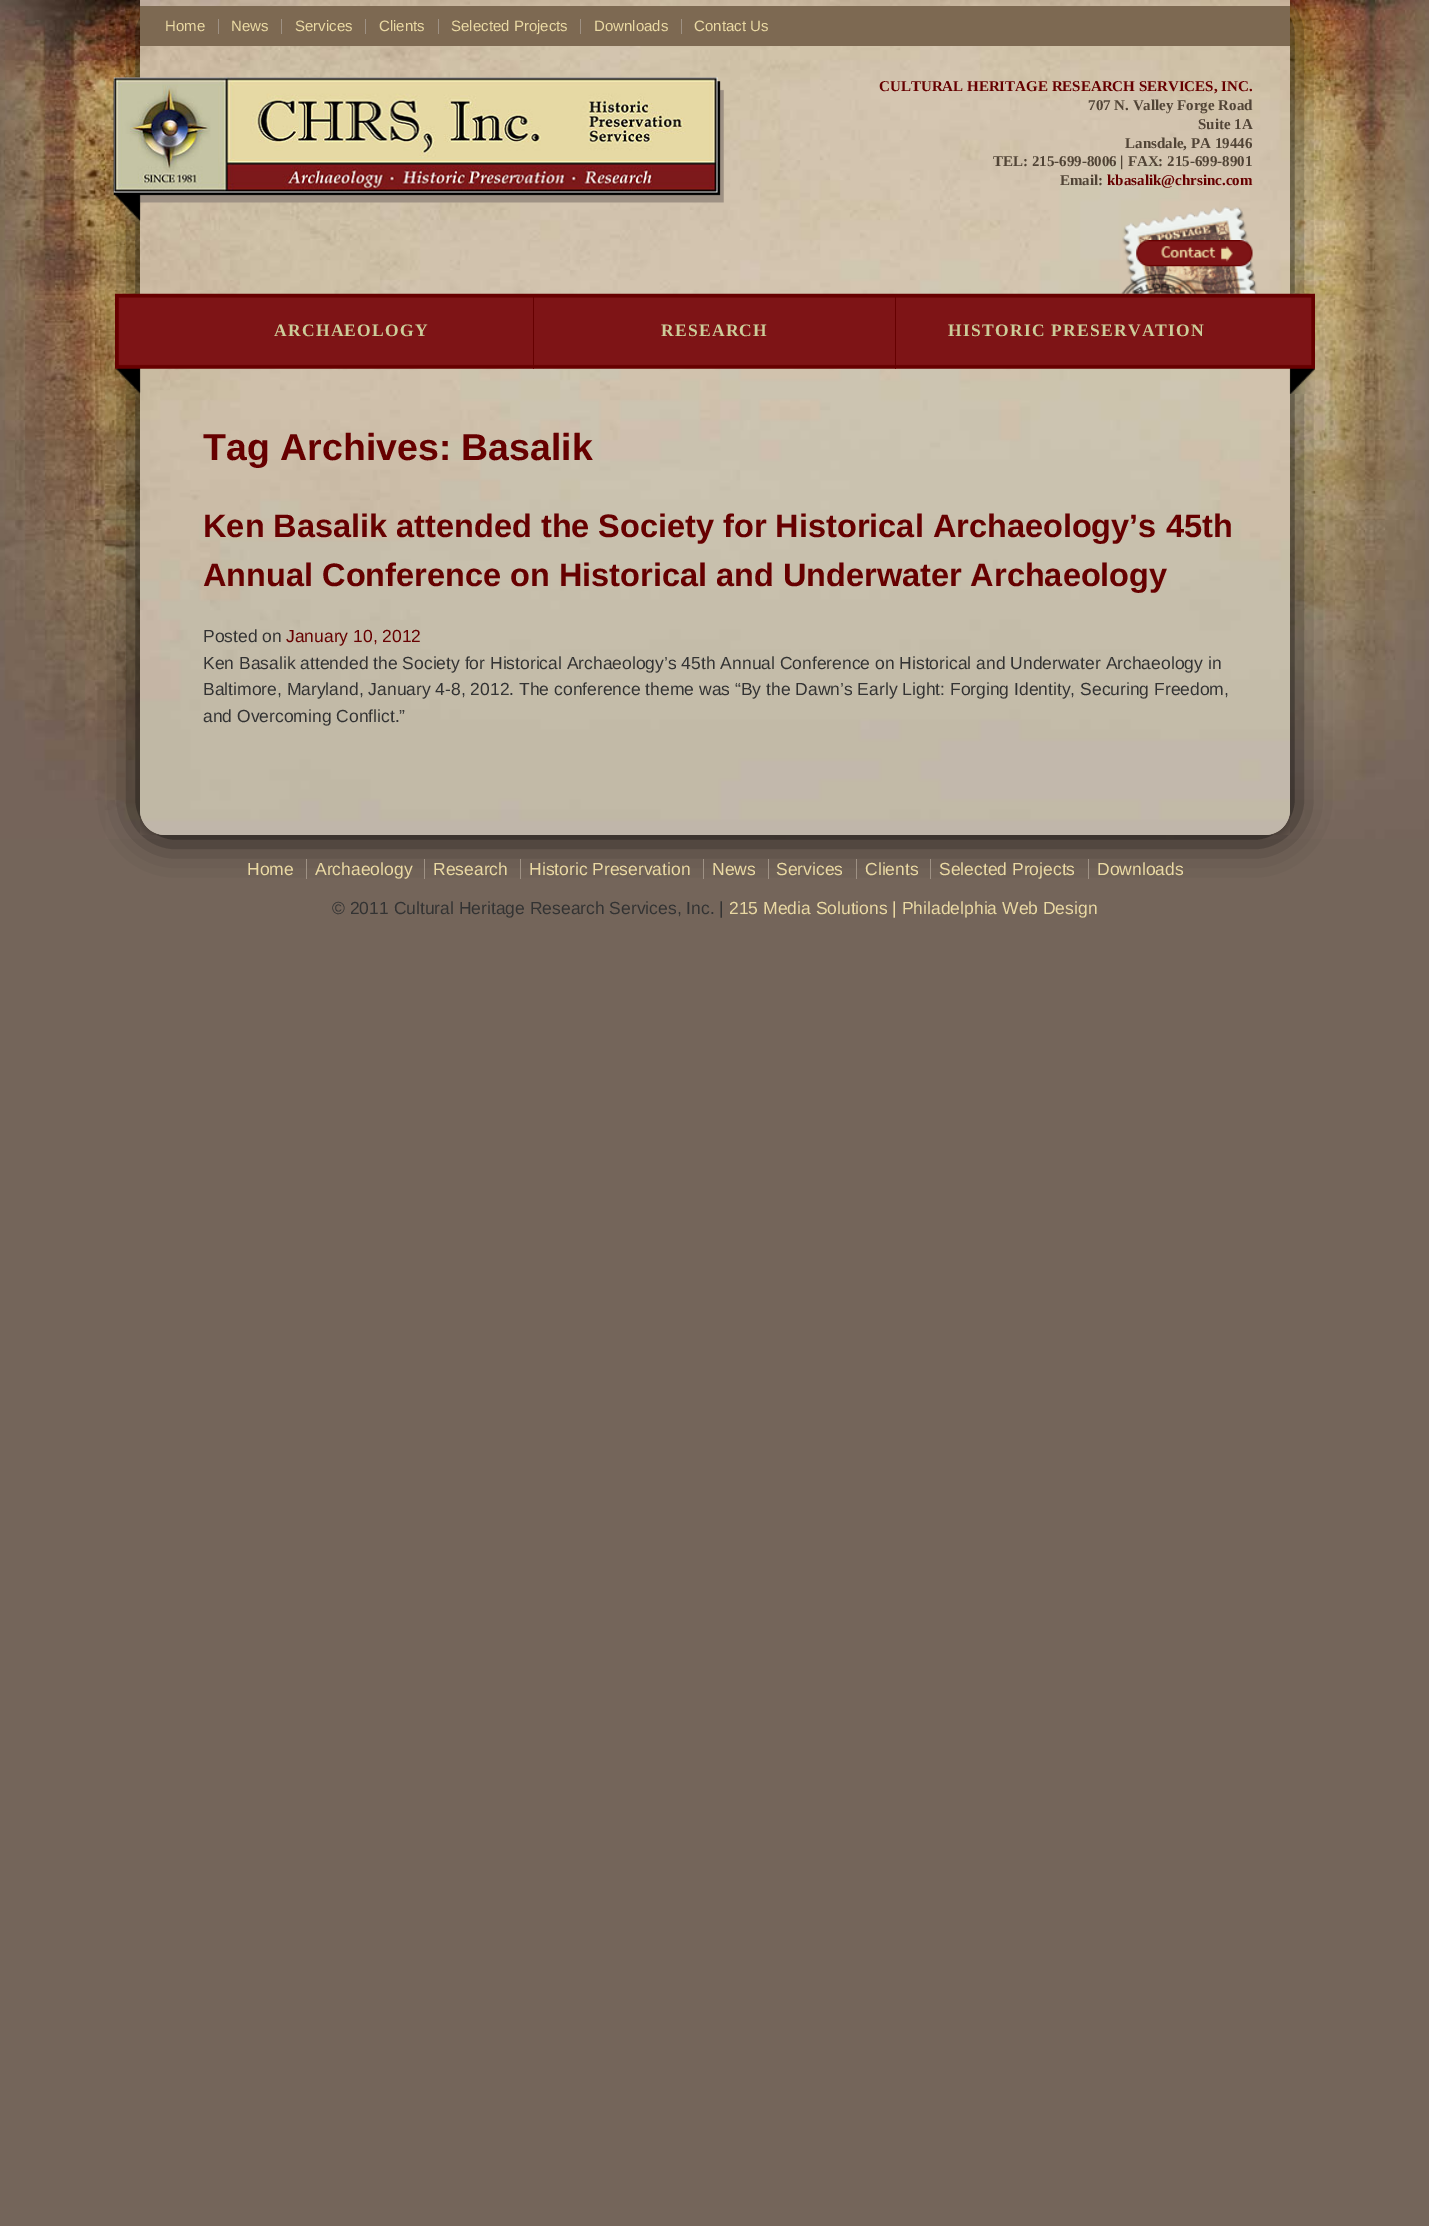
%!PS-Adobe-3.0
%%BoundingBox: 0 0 1429 2226
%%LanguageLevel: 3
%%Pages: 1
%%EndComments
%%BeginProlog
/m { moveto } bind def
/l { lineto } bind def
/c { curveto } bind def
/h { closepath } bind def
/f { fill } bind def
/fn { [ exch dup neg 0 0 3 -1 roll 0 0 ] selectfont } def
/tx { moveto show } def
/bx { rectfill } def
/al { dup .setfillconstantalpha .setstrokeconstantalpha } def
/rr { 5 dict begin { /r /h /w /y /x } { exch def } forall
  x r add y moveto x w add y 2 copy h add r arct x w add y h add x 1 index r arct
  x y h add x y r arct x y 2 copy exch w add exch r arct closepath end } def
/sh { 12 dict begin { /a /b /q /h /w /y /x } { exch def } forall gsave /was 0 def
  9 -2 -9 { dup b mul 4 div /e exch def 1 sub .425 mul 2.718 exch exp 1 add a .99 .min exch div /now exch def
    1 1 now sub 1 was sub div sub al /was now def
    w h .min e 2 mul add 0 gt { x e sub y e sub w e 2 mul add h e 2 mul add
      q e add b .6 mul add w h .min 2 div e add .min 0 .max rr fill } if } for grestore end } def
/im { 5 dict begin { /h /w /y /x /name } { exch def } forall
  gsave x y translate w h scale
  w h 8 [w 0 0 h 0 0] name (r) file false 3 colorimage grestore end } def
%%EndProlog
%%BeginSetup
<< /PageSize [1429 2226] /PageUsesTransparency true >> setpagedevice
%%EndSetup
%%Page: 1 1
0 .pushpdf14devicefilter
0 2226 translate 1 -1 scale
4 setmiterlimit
0.455 0.396 0.353 setrgbcolor
0 0 1429 2226 bx
(image0.raw) 0 0 1429 839 im
0 setgray
140 0 1150 835 25 19 1 sh
0.761 0.718 0.659 setrgbcolor
140 0 m 1290 0 l 1290 810 l 1290 824 1279 835 1265 835 c 165 835 l 151 835 140 824 140 810 c h f
(image1.raw) 140 0 1150 835 im
0.49 0.412 0.322 setrgbcolor
140 6 1150 40 bx
/LiberationSans-Regular 15 fn
0.918 0.851 0.639 setrgbcolor
(Home) 165 31 tx
0.62 0.569 0.518 setrgbcolor
218 19 1 15 bx
0.918 0.851 0.639 setrgbcolor
(News) 231 31 tx
0.62 0.569 0.518 setrgbcolor
281 19 1 15 bx
0.918 0.851 0.639 setrgbcolor
(Services) 295 31 tx
0.62 0.569 0.518 setrgbcolor
365 19 1 15 bx
0.918 0.851 0.639 setrgbcolor
(Clients) 379 31 tx
0.62 0.569 0.518 setrgbcolor
438 19 1 15 bx
0.918 0.851 0.639 setrgbcolor
(Selected Projects) 451 31 tx
0.62 0.569 0.518 setrgbcolor
580 19 1 15 bx
0.918 0.851 0.639 setrgbcolor
(Downloads) 594 31 tx
0.62 0.569 0.518 setrgbcolor
681 19 1 15 bx
0.918 0.851 0.639 setrgbcolor
(Contact Us) 694 31 tx
(image2.raw) 113 81 611 141 im
(image3.raw) 113 77 605 116 im
(image4.raw) 1121 206 137 88 im
/LiberationSerif-Bold 15 fn
0.4 0 0 setrgbcolor
(CULTURAL HERITAGE RESEARCH SERVICES, INC.) 879 91 tx
0.318 0.267 0.212 setrgbcolor
(707 N. Valley Forge Road) 1088 110 tx
(Suite 1A) 1198 129 tx
(Lansdale, PA 19446) 1125 148 tx
(TEL: 215-699-8006 | FAX: 215-699-8901) 993 166 tx
(Email:) 1060 185 tx
0.4 0 0 setrgbcolor
(kbasalik@chrsinc.com) 1107 185 tx
(image5.raw) 1136 240 117 27 im
(image6.raw) 115 293 1200 101 im
/LiberationSerif-Bold 17.5 fn
0.8 0.8 0.6 setrgbcolor
274 336 m 1.25 0 (ARCHAEOLOGY) ashow
0.4 0 0 setrgbcolor
533 294 1 75 bx
0.8 0.8 0.6 setrgbcolor
661 336 m 1.25 0 (RESEARCH) ashow
0.4 0 0 setrgbcolor
895 294 1 75 bx
0.8 0.8 0.6 setrgbcolor
948 336 m 1.25 0 (HISTORIC PRESERVATION) ashow
/LiberationSans-Bold 37.5 fn
0.4 0 0 setrgbcolor
(Tag Archives: Basalik) 203 460 tx
/LiberationSans-Bold 32.5 fn
(Ken Basalik attended the Society for Historical Archaeology’s 45th) 203 537 tx
(Annual Conference on Historical and Underwater Archaeology) 203 586 tx
/LiberationSans-Regular 17.5 fn
0.2 setgray
(Posted on) 203 642 tx
0.4 0 0 setrgbcolor
(January 10, 2012) 286 642 tx
0.2 setgray
(Ken Basalik attended the Society for Historical Archaeology’s 45th Annual Conference on Historical and Underwater Archaeology in) 203 669 tx
(Baltimore, Maryland, January 4-8, 2012. The conference theme was “By the Dawn’s Early Light: Forging Identity, Securing Freedom,) 203 695 tx
(and Overcoming Conflict.”) 203 722 tx
0.918 0.851 0.639 setrgbcolor
(Home) 247 875 tx
(Archaeology) 315 875 tx
0.62 0.569 0.518 setrgbcolor
306 859 1 20 bx
0.918 0.851 0.639 setrgbcolor
(Research) 433 875 tx
0.62 0.569 0.518 setrgbcolor
424 859 1 20 bx
0.918 0.851 0.639 setrgbcolor
(Historic Preservation) 529 875 tx
0.62 0.569 0.518 setrgbcolor
520 859 1 20 bx
0.918 0.851 0.639 setrgbcolor
(News) 712 875 tx
0.62 0.569 0.518 setrgbcolor
703 859 1 20 bx
0.918 0.851 0.639 setrgbcolor
(Services) 776 875 tx
0.62 0.569 0.518 setrgbcolor
768 859 1 20 bx
0.918 0.851 0.639 setrgbcolor
(Clients) 865 875 tx
0.62 0.569 0.518 setrgbcolor
856 859 1 20 bx
0.918 0.851 0.639 setrgbcolor
(Selected Projects) 939 875 tx
0.62 0.569 0.518 setrgbcolor
930 859 1 20 bx
0.918 0.851 0.639 setrgbcolor
(Downloads) 1097 875 tx
0.62 0.569 0.518 setrgbcolor
1088 859 1 20 bx
0.2 setgray
(© 2011 Cultural Heritage Research Services, Inc. |) 332 914 tx
0.918 0.851 0.639 setrgbcolor
(215 Media Solutions | Philadelphia Web Design) 729 914 tx
.poppdf14devicefilter showpage
%%EOF
